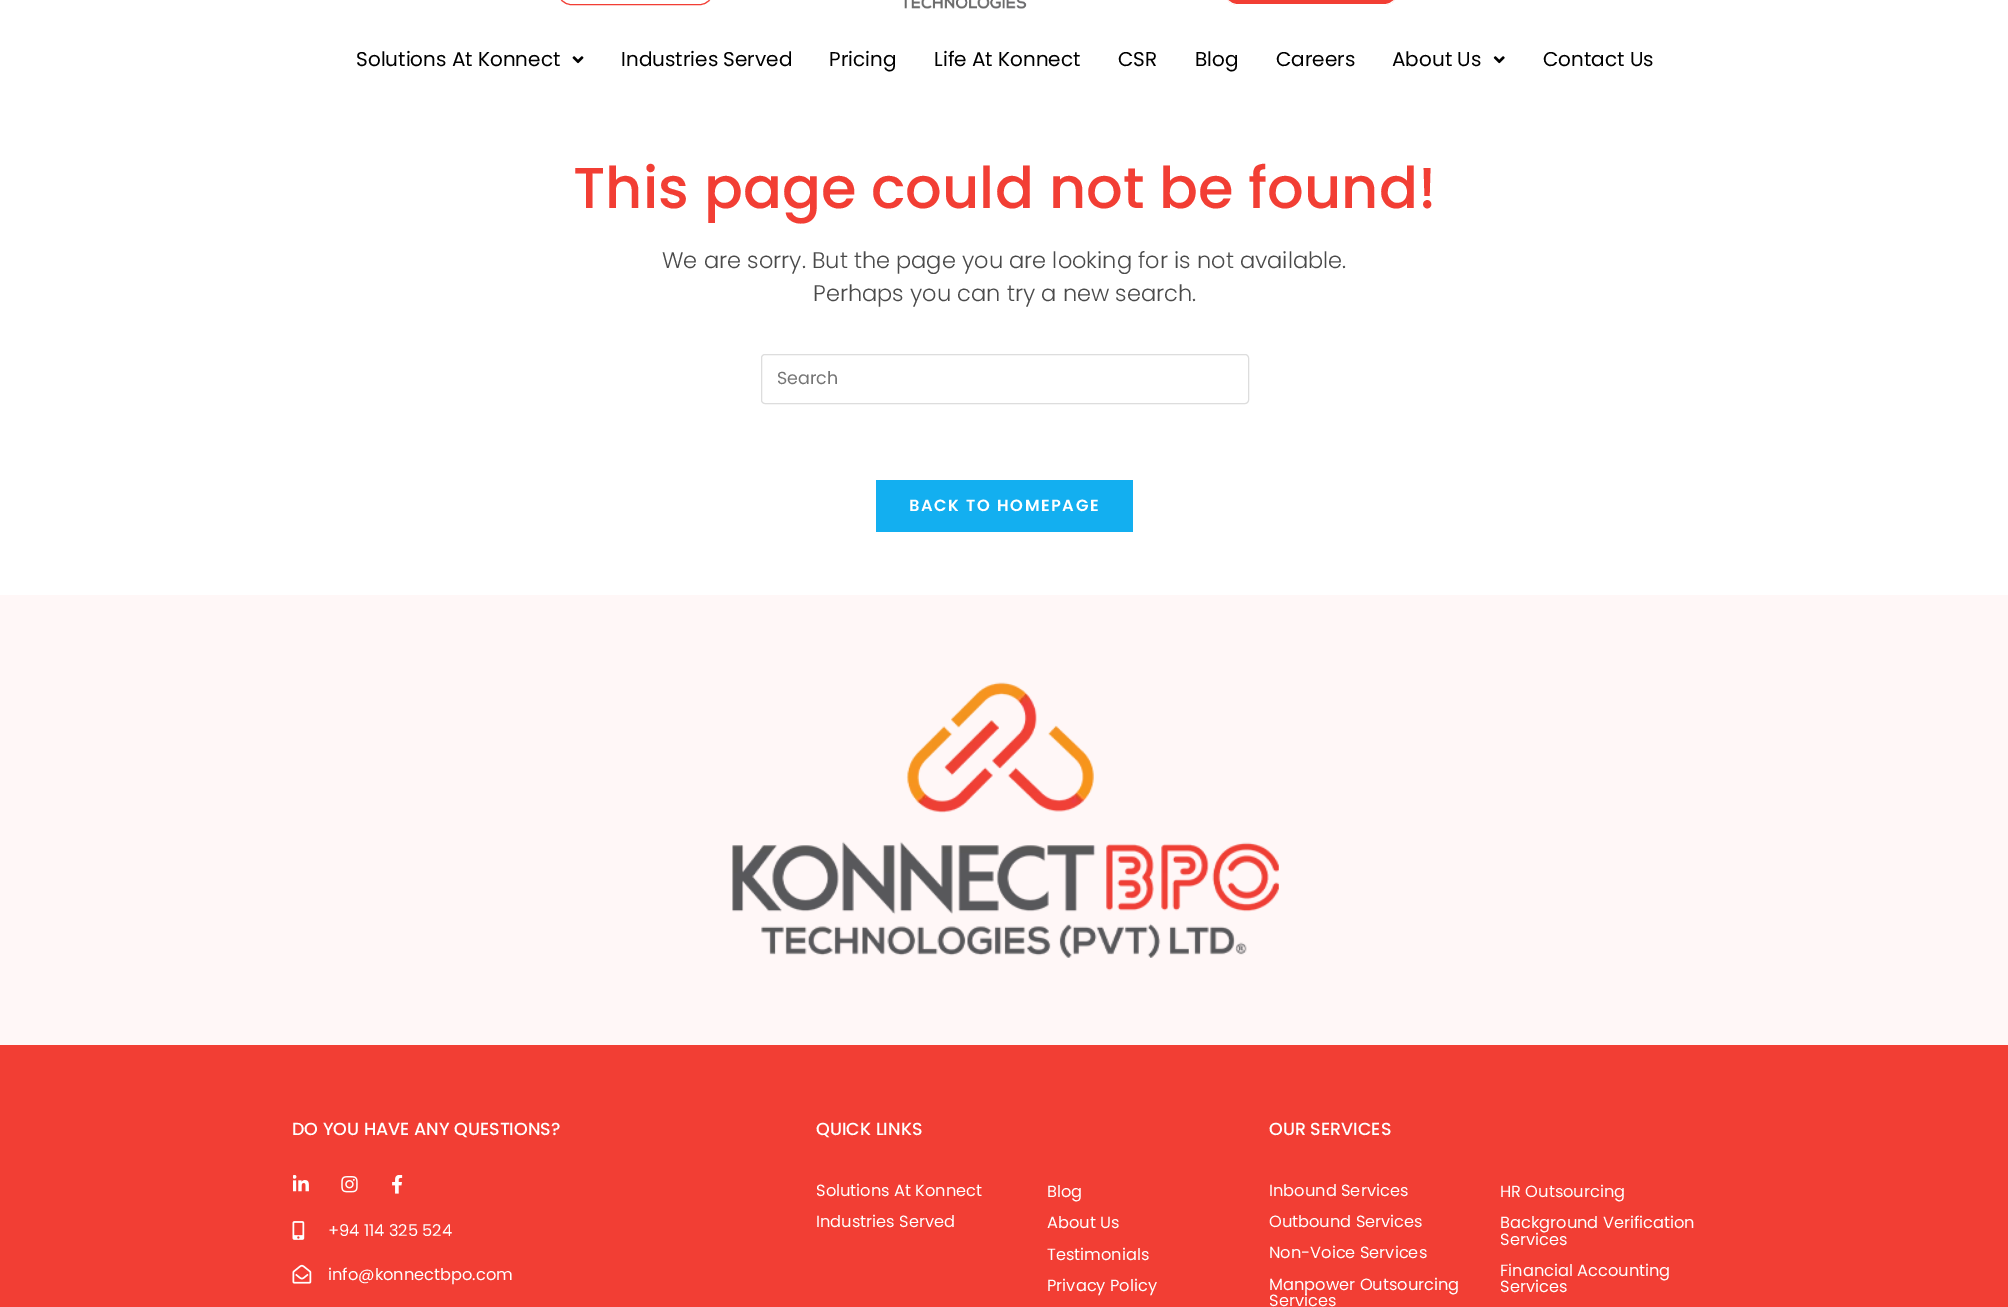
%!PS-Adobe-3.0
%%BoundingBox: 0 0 2008 1307
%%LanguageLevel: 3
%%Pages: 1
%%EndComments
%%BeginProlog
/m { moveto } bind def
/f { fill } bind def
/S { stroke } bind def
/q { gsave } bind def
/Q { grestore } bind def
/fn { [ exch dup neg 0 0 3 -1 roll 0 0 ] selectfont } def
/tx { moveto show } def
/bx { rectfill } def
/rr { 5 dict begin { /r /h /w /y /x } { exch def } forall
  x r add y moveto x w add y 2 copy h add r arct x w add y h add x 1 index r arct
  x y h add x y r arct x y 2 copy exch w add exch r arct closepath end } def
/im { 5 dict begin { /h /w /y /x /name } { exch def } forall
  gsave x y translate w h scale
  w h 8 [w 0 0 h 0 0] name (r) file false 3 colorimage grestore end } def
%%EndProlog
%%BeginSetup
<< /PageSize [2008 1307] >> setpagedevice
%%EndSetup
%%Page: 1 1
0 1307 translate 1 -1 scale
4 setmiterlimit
1 setgray
0 0 2008 1307 bx
0.949 0.243 0.204 setrgbcolor
558.5 -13.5 154 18 12.5 rr S
(image0.raw) 904 0 123 9 im
1224.5 -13.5 173 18 12.5 rr q f Q
1 setgray
S
/Poppins-Regular 20 fn
0 setgray
(Solutions At Konnect) 356 66 tx
(image1.raw) 572 56 12 8 im
(Industries Served) 621 66 tx
(Pricing) 829 66 tx
(Life At Konnect) 934 66 tx
(CSR) 1118 66 tx
(Blog) 1195 66 tx
(Careers) 1276 66 tx
(About Us) 1392 66 tx
(image2.raw) 1493 56 12 8 im
(Contact Us) 1543 66 tx
/Poppins-Medium 57.5 fn
0.949 0.243 0.204 setrgbcolor
(This page could not be found!) 573 208 tx
/Poppins-Light 22.5 fn
0.29 setgray
(We are sorry. But the page you are looking for is not available.) 662 268 tx
(Perhaps you can try a new search.) 813 301 tx
0.867 setgray
761.5 354.5 487 49 3.5 rr S
/Poppins-Regular 17.5 fn
0.459 setgray
(Search) 777 384 tx
0.075 0.686 0.941 setrgbcolor
876 480 257 52 bx
/Poppins-SemiBold 16.25 fn
1 setgray
909 511 m 1.6 0 (BACK TO HOMEPAGE) ashow
1 0.969 0.969 setrgbcolor
0 595 2008 450 bx
(image3.raw) 732 682 547 276 im
0.949 0.243 0.204 setrgbcolor
0 1045 2008 262 bx
/Poppins-Medium 17.5 fn
1 setgray
(DO YOU HAVE ANY QUESTIONS?) 292 1135 tx
(image4.raw) 293 1175 16 17 im
(image5.raw) 341 1176 17 17 im
(image6.raw) 392 1175 11 19 im
(image7.raw) 292 1221 13 19 im
/Poppins-Regular 16.25 fn
(+94 114 325 524) 328 1236 tx
(image8.raw) 292 1264 20 20 im
(info@konnectbpo.com) 328 1280 tx
/Poppins-Medium 17.5 fn
(QUICK LINKS) 816 1135 tx
/Poppins-Regular 16.25 fn
(Solutions At Konnect) 816 1196 tx
(Industries Served) 816 1227 tx
(Blog) 1047 1197 tx
(About Us) 1047 1228 tx
(Testimonials) 1047 1260 tx
(Privacy Policy) 1047 1291 tx
/Poppins-Medium 17.5 fn
(OUR SERVICES) 1269 1135 tx
/Poppins-Regular 16.25 fn
(Inbound Services) 1269 1196 tx
(Outbound Services) 1269 1227 tx
(Non-Voice Services) 1269 1258 tx
(Manpower Outsourcing) 1269 1290 tx
(Services) 1269 1306 tx
(HR Outsourcing) 1500 1197 tx
(Background Verification) 1500 1228 tx
(Services) 1500 1245 tx
(Financial Accounting) 1500 1276 tx
(Services) 1500 1292 tx
showpage
%%EOF
